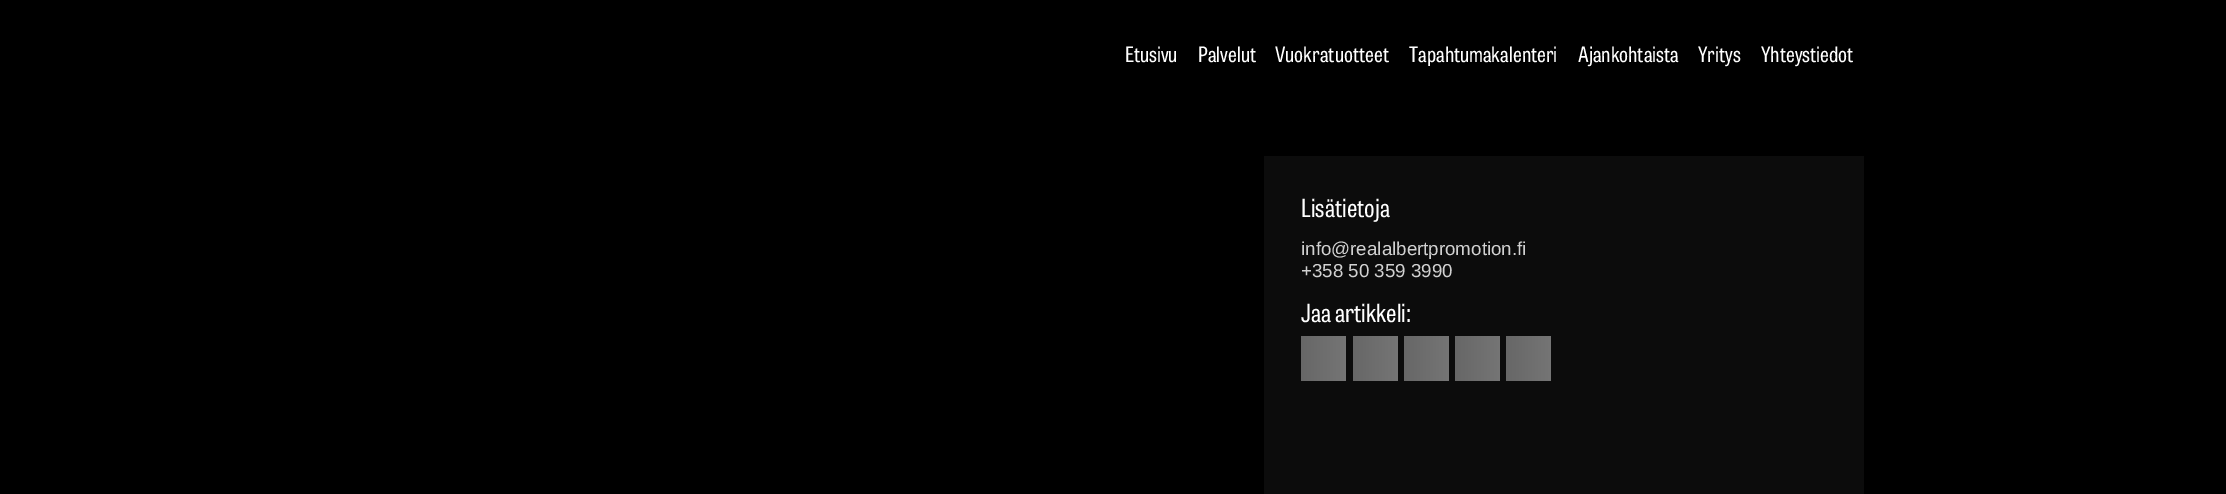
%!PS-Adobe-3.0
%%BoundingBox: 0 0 2226 494
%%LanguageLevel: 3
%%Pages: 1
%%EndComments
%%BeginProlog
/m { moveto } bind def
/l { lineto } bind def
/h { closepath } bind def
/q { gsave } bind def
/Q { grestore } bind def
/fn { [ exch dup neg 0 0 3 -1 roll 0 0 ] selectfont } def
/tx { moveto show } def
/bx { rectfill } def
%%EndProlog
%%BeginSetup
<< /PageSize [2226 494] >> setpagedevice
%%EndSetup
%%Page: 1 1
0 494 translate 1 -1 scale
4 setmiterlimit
0 setgray
0 0 2226 494 bx
/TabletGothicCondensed-Regular 21.25 fn
1 setgray
(Etusivu) 1125 62 tx
(Palvelut) 1198 62 tx
(Vuokratuotteet) 1275 62 tx
(Tapahtumakalenteri) 1409 62 tx
(Ajankohtaista) 1578 62 tx
(Yritys) 1698 62 tx
(Yhteystiedot) 1761 62 tx
0.047 setgray
1264 156 600 338 bx
/TabletGothicCondensed-Regular 25 fn
1 setgray
(Lisätietoja) 1301 217 tx
/LiberationSans-Regular 18.75 fn
0.82 setgray
(info@realalbertpromotion.fi) 1301 255 tx
(+358 50 359 3990) 1301 277 tx
/TabletGothicCondensed-Regular 25 fn
1 setgray
(Jaa artikkeli:) 1301 322 tx
q 1301 336 m 1346 336 l 1346 381 l 1301 381 l h clip newpath
<< /ShadingType 2 /ColorSpace /DeviceRGB /Coords [1301 359 1346 359] /Extend [true true] /Function << /FunctionType 2 /Domain [0 1] /C0 [0.404 0.404 0.404] /C1 [0.459 0.459 0.459] /N 1 >> >> shfill Q
q 1353 336 m 1398 336 l 1398 381 l 1353 381 l h clip newpath
<< /ShadingType 2 /ColorSpace /DeviceRGB /Coords [1353 359 1398 359] /Extend [true true] /Function << /FunctionType 2 /Domain [0 1] /C0 [0.404 0.404 0.404] /C1 [0.459 0.459 0.459] /N 1 >> >> shfill Q
q 1404 336 m 1449 336 l 1449 381 l 1404 381 l h clip newpath
<< /ShadingType 2 /ColorSpace /DeviceRGB /Coords [1404 359 1449 359] /Extend [true true] /Function << /FunctionType 2 /Domain [0 1] /C0 [0.404 0.404 0.404] /C1 [0.459 0.459 0.459] /N 1 >> >> shfill Q
q 1455 336 m 1500 336 l 1500 381 l 1455 381 l h clip newpath
<< /ShadingType 2 /ColorSpace /DeviceRGB /Coords [1455 359 1500 359] /Extend [true true] /Function << /FunctionType 2 /Domain [0 1] /C0 [0.404 0.404 0.404] /C1 [0.459 0.459 0.459] /N 1 >> >> shfill Q
q 1506 336 m 1551 336 l 1551 381 l 1506 381 l h clip newpath
<< /ShadingType 2 /ColorSpace /DeviceRGB /Coords [1506 359 1551 359] /Extend [true true] /Function << /FunctionType 2 /Domain [0 1] /C0 [0.404 0.404 0.404] /C1 [0.459 0.459 0.459] /N 1 >> >> shfill Q
showpage
%%EOF
